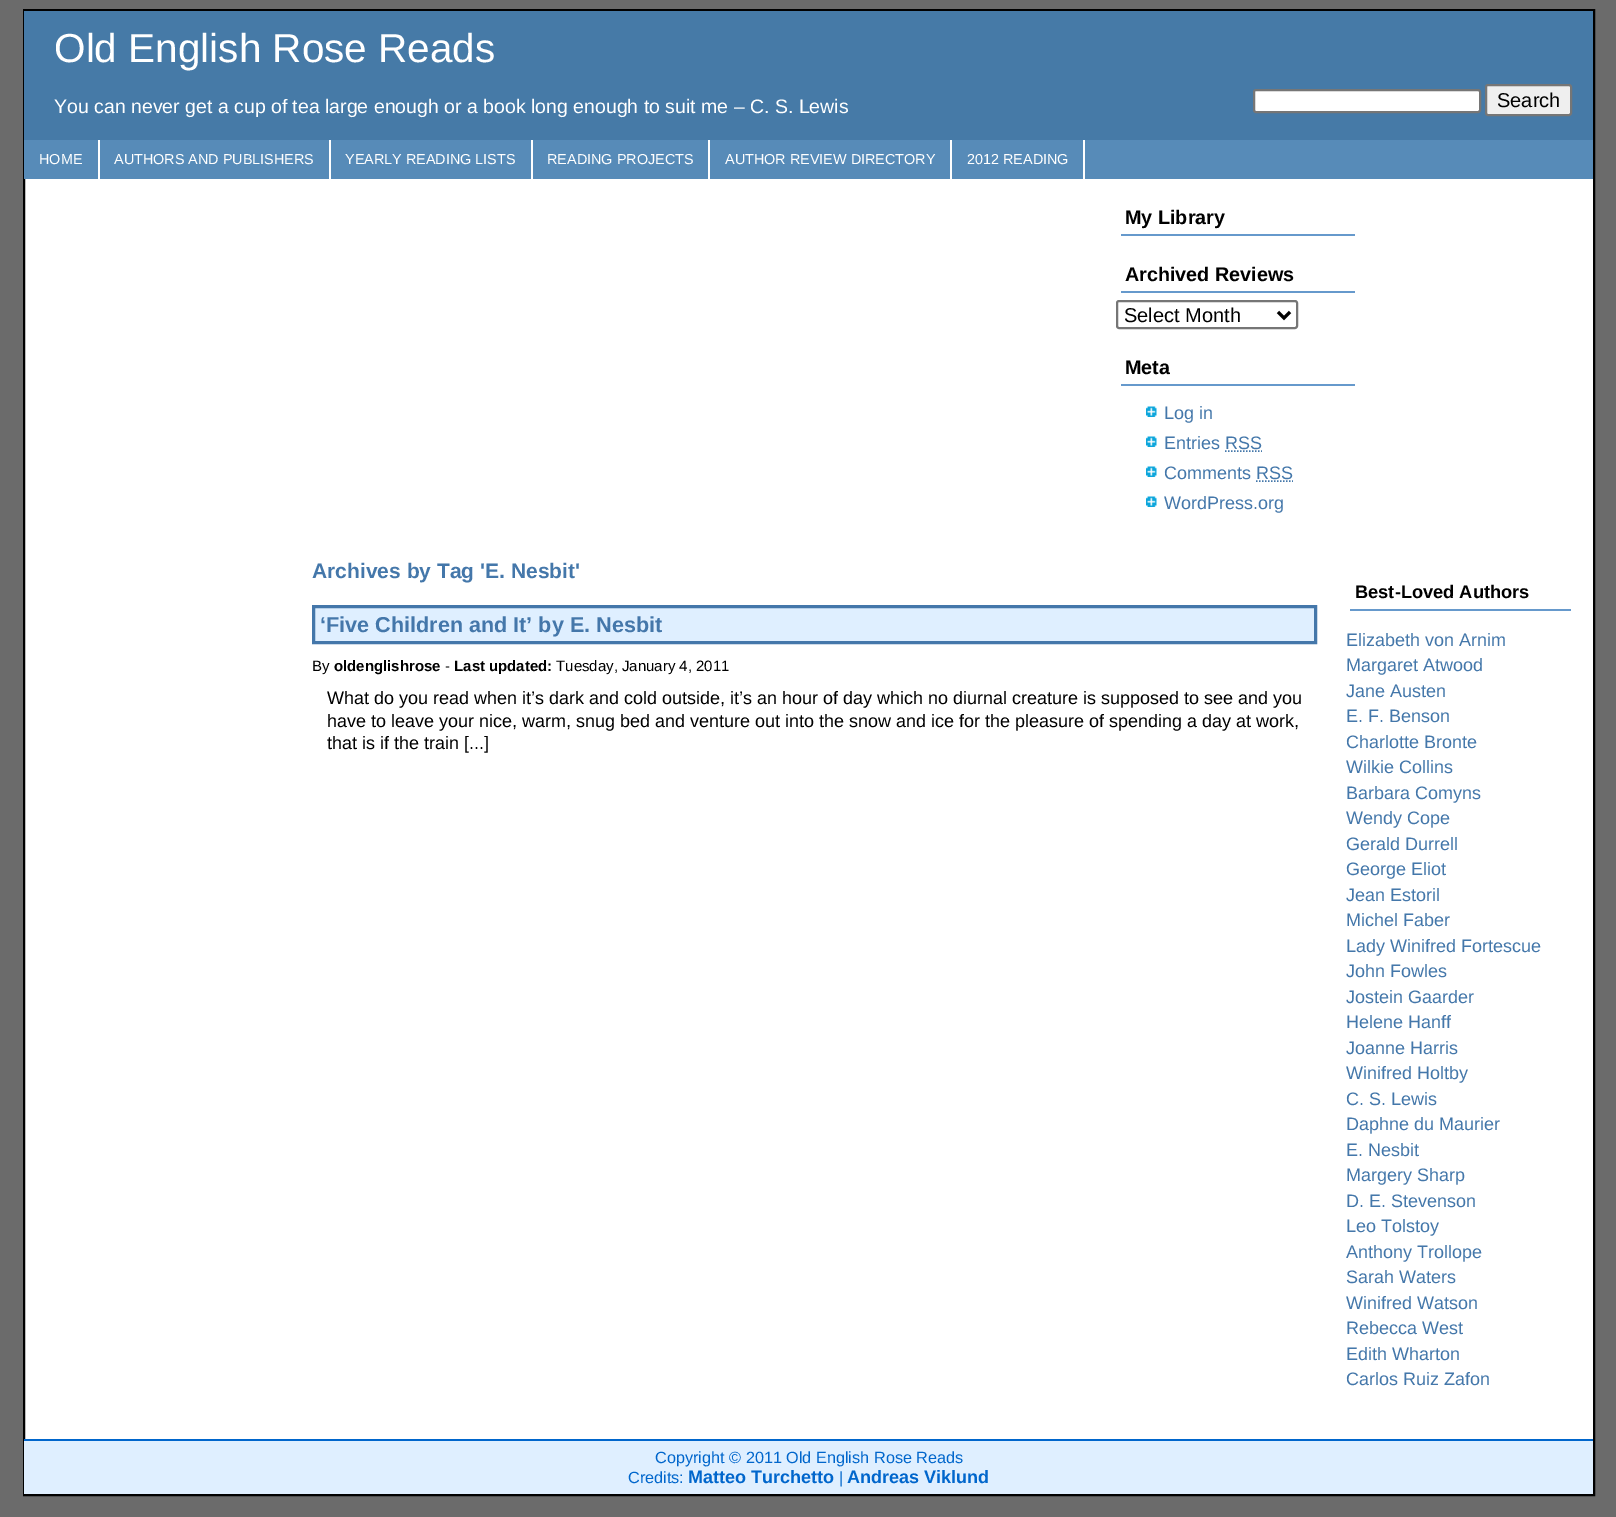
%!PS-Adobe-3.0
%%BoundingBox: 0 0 1616 1517
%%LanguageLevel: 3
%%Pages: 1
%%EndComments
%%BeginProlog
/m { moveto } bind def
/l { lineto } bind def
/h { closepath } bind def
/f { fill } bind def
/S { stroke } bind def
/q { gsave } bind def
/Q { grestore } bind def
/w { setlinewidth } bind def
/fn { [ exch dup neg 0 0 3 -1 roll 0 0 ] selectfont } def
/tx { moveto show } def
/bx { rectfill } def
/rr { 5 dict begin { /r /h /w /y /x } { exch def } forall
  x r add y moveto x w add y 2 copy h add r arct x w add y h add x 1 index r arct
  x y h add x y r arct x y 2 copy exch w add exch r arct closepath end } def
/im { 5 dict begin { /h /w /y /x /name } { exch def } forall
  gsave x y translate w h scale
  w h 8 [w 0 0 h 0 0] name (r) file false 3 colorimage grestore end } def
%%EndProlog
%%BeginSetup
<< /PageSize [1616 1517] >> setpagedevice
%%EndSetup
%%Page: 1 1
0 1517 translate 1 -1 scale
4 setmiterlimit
0.42 setgray
0 0 1616 1517 bx
1 setgray
25 179 1568 1260 bx
0 setgray
2 w
24 10 1570 1485 rectstroke
0.275 0.478 0.655 setrgbcolor
24 11 1569 129 bx
/LiberationSans-Regular 40.5 fn
1 setgray
(Old English Rose Reads) 54 62 tx
/LiberationSans-Regular 19.5 fn
(You can never get a cup of tea large enough or a book long enough to suit me – C. S. Lewis) 54 113 tx
1254 90 226 22 2 rr q f Q
0.463 setgray
S
0.937 setgray
1486 85 85 30 2 rr q f Q
0.463 setgray
S
/LiberationSans-Regular 20 fn
0 setgray
(Search) 1497 107 tx
0.341 0.545 0.722 setrgbcolor
24 140 1569 39 bx
1 setgray
98 140 2 39 bx
/LiberationSans-Regular 14.4 fn
(HOME) 39 164 tx
329 140 2 39 bx
(AUTHORS AND PUBLISHERS) 114 164 tx
531 140 2 39 bx
(YEARLY READING LISTS) 345 164 tx
708 140 2 39 bx
(READING PROJECTS) 547 164 tx
950 140 2 39 bx
(AUTHOR REVIEW DIRECTORY) 725 164 tx
1083 140 2 39 bx
(2012 READING) 967 164 tx
0.4 0.6 0.8 setrgbcolor
1121 234 234 2 bx
/LiberationSans-Bold 19.75 fn
0 setgray
(My Library) 1125 224 tx
0.4 0.6 0.8 setrgbcolor
1121 291 234 2 bx
0 setgray
(Archived Reviews) 1125 281 tx
0.463 setgray
1117 301 180 27 2 rr S
0 setgray
3 w
1278 312 m 1284 318 l 1290 312 l S
/LiberationSans-Regular 20 fn
(Select Month) 1124 322 tx
0.4 0.6 0.8 setrgbcolor
1121 384 234 2 bx
/LiberationSans-Bold 19.75 fn
0 setgray
(Meta) 1125 374 tx
(image0.raw) 1146 406 11 11 im
/LiberationSans-Regular 18 fn
0.267 0.467 0.667 setrgbcolor
(Log in) 1164 419 tx
(image0.raw) 1146 436 11 11 im
(Entries RSS) 1164 449 tx
1.5 w
[1.5 1.5] 0 setdash
1225 451 m 1262 451 l S
(image0.raw) 1146 466 11 11 im
(Comments RSS) 1164 479 tx
1256 481 m 1293 481 l S
(image0.raw) 1146 496 11 11 im
(WordPress.org) 1164 509 tx
/LiberationSans-Bold 21 fn
(Archives by Tag 'E. Nesbit') 312 578 tx
0.875 0.937 1 setrgbcolor
313.5 606.5 m 1315.5 606.5 l 1315.5 642.5 l 313.5 642.5 l h q f Q
0.267 0.467 0.667 setrgbcolor
3 w
[] 0 setdash
S
/LiberationSans-Bold 21.6 fn
(‘Five Children and It’ by E. Nesbit) 320 632 tx
/LiberationSans-Regular 15 fn
0 setgray
(By) 312 671 tx
/LiberationSans-Bold 15 fn
(oldenglishrose) 334 671 tx
/LiberationSans-Regular 15 fn
(-) 445 671 tx
/LiberationSans-Bold 15 fn
(Last updated:) 454 671 tx
/LiberationSans-Regular 15 fn
(Tuesday, January 4, 2011) 556 671 tx
/LiberationSans-Regular 18 fn
(What do you read when it’s dark and cold outside, it’s an hour of day which no diurnal creature is supposed to see and you) 327 704 tx
(have to leave your nice, warm, snug bed and venture out into the snow and ice for the pleasure of spending a day at work,) 327 727 tx
(that is if the train [...]) 327 749 tx
0.4 0.6 0.8 setrgbcolor
1350 609 221 2 bx
/LiberationSans-Bold 18.25 fn
0 setgray
(Best-Loved Authors) 1355 598 tx
/LiberationSans-Regular 18 fn
0.267 0.467 0.667 setrgbcolor
(Elizabeth von Arnim) 1346 646 tx
(Margaret Atwood) 1346 671 tx
(Jane Austen) 1346 697 tx
(E. F. Benson) 1346 722 tx
(Charlotte Bronte) 1346 748 tx
(Wilkie Collins) 1346 773 tx
(Barbara Comyns) 1346 799 tx
(Wendy Cope) 1346 824 tx
(Gerald Durrell) 1346 850 tx
(George Eliot) 1346 875 tx
(Jean Estoril) 1346 901 tx
(Michel Faber) 1346 926 tx
(Lady Winifred Fortescue) 1346 952 tx
(John Fowles) 1346 977 tx
(Jostein Gaarder) 1346 1003 tx
(Helene Hanff) 1346 1028 tx
(Joanne Harris) 1346 1054 tx
(Winifred Holtby) 1346 1079 tx
(C. S. Lewis) 1346 1105 tx
(Daphne du Maurier) 1346 1130 tx
(E. Nesbit) 1346 1156 tx
(Margery Sharp) 1346 1181 tx
(D. E. Stevenson) 1346 1207 tx
(Leo Tolstoy) 1346 1232 tx
(Anthony Trollope) 1346 1258 tx
(Sarah Waters) 1346 1283 tx
(Winifred Watson) 1346 1309 tx
(Rebecca West) 1346 1334 tx
(Edith Wharton) 1346 1360 tx
(Carlos Ruiz Zafon) 1346 1385 tx
0.875 0.937 1 setrgbcolor
24 1441 1569 53 bx
0 0.4 0.8 setrgbcolor
24 1439 1569 2 bx
/LiberationSans-Regular 16.25 fn
(Copyright © 2011 Old English Rose Reads) 655 1463 tx
(Credits:) 628 1483 tx
/LiberationSans-Bold 18 fn
(Matteo Turchetto) 688 1483 tx
/LiberationSans-Regular 16.25 fn
(|) 839 1483 tx
/LiberationSans-Bold 18 fn
(Andreas Viklund) 847 1483 tx
showpage
%%EOF
